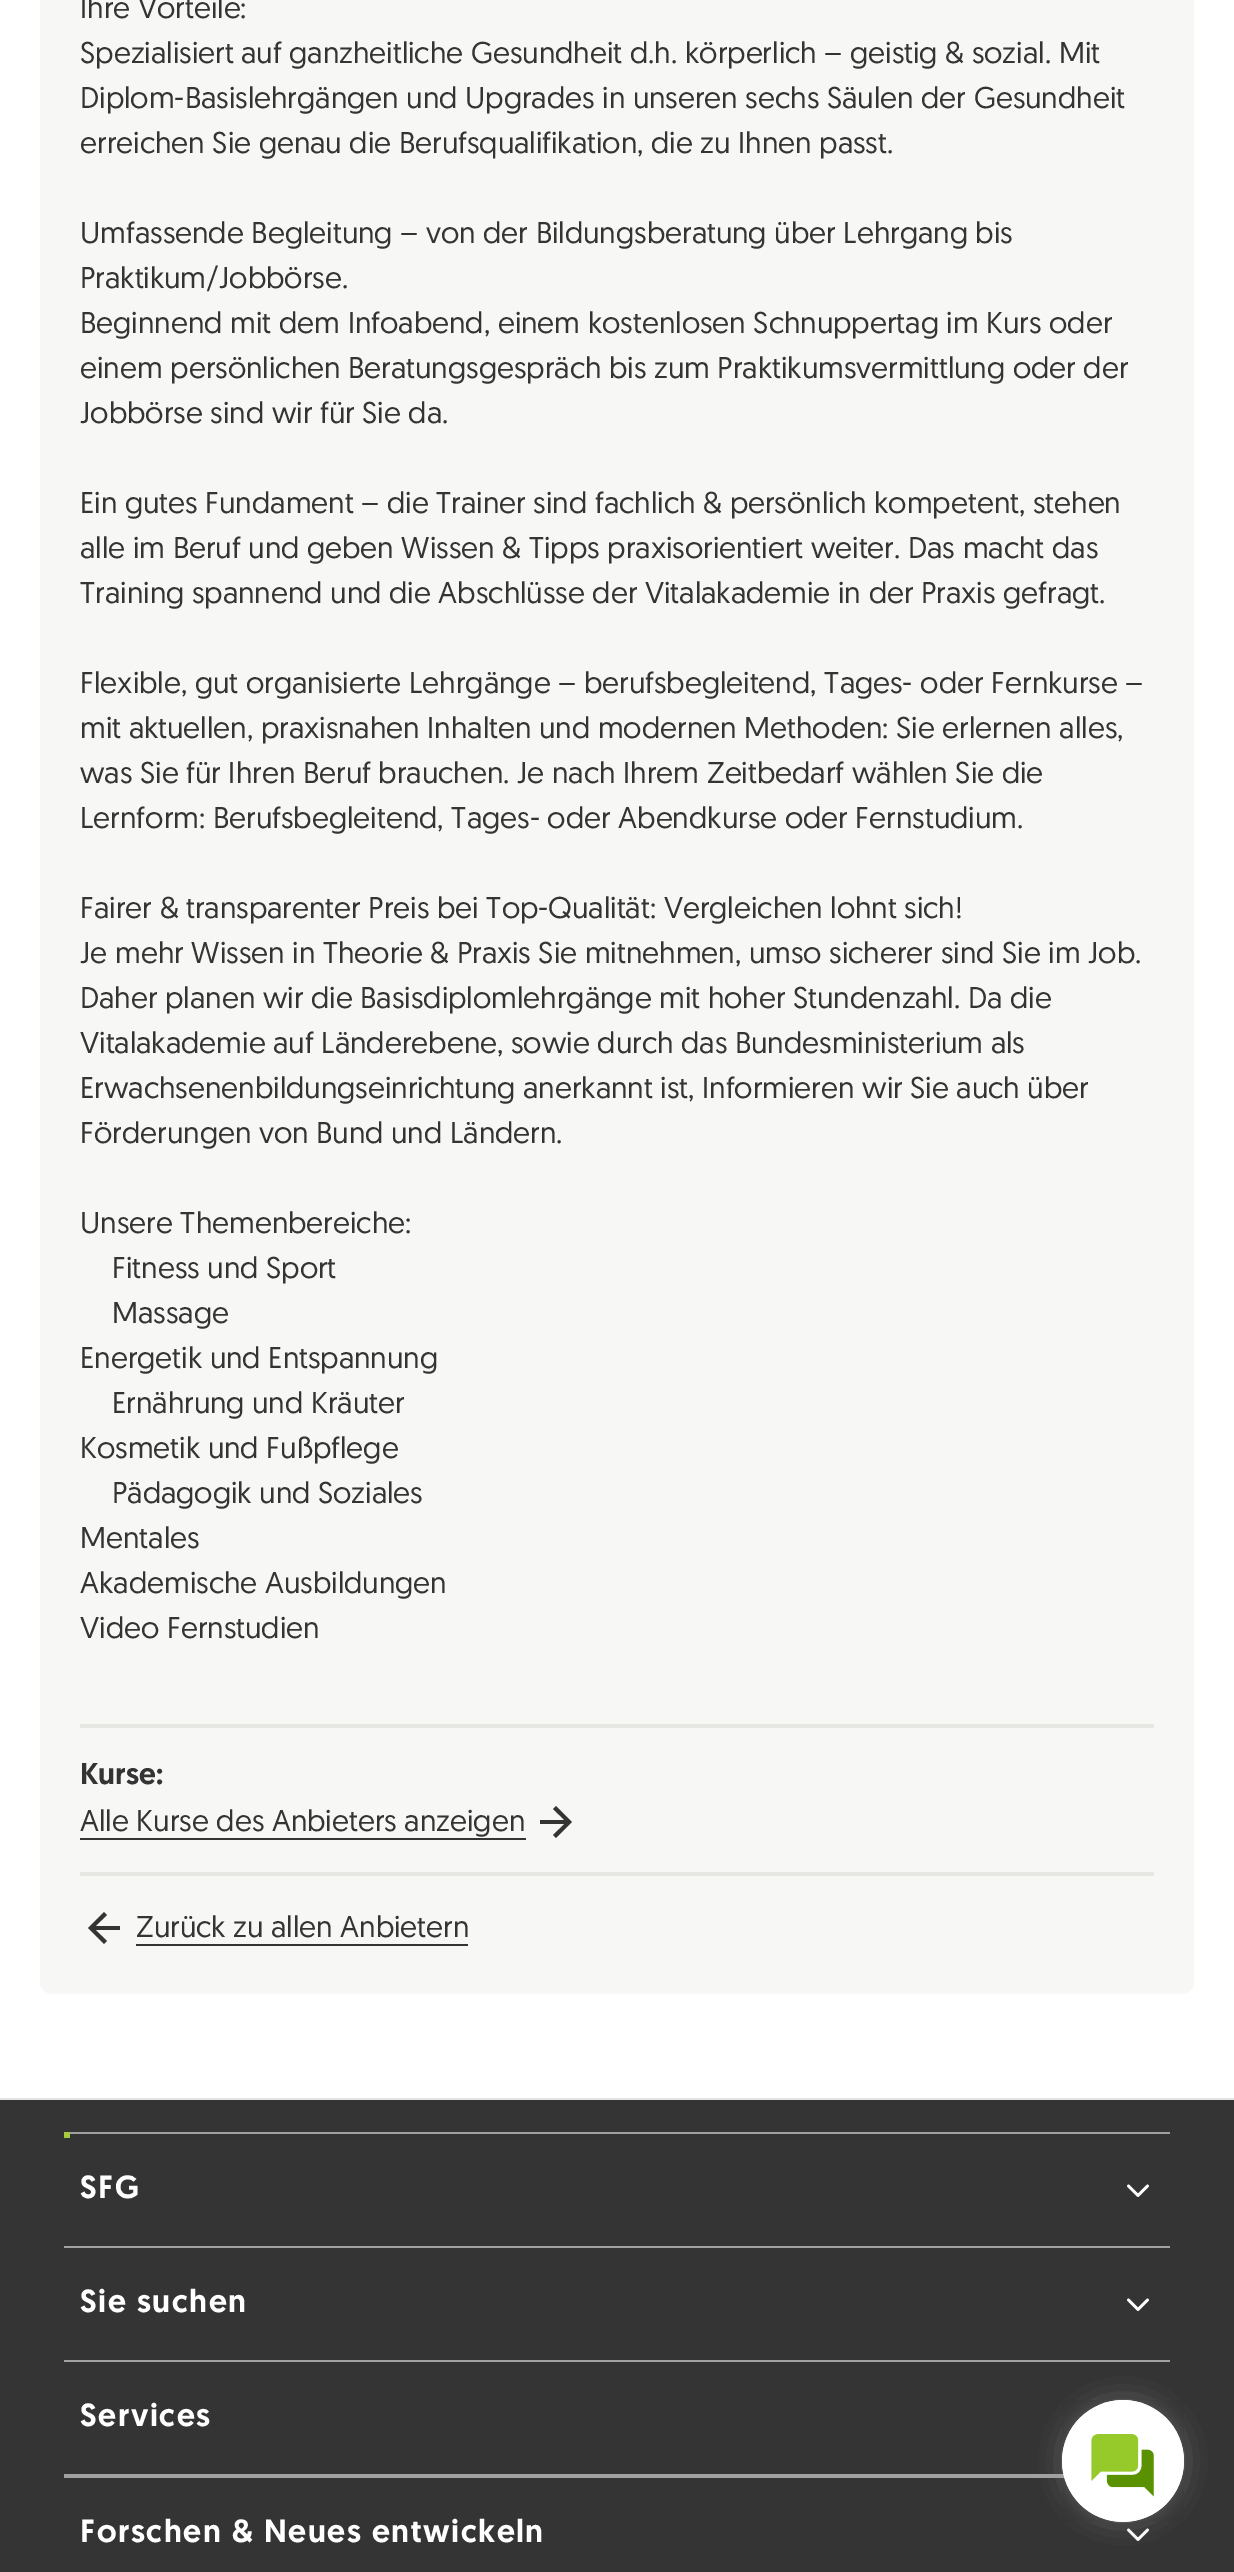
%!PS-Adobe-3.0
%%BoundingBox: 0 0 1234 2572
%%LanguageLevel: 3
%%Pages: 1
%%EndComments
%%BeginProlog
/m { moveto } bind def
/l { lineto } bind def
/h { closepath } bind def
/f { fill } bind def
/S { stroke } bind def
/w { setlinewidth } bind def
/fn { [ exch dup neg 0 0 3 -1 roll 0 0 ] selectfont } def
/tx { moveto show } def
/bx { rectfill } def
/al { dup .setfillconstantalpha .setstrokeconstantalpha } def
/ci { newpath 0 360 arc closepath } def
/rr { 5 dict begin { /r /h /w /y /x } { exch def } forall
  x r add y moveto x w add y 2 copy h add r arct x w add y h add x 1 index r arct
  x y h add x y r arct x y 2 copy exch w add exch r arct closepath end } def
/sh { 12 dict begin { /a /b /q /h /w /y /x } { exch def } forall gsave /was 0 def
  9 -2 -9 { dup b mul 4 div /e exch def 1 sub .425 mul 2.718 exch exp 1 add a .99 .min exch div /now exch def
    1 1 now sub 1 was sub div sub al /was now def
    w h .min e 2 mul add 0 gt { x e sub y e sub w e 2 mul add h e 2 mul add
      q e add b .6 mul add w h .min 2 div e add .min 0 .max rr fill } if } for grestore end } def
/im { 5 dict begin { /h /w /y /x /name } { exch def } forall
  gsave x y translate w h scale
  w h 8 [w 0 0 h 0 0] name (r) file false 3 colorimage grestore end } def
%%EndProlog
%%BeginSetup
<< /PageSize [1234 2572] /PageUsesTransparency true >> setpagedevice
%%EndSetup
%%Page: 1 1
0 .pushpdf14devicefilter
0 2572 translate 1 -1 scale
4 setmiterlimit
1 setgray
0 0 1234 2572 bx
0.969 0.969 0.961 setrgbcolor
40 -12 1154 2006 12 rr f
/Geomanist-Regular 30 fn
0.204 setgray
(Ihre Vorteile:) 80 18 tx
(Spezialisiert auf ganzheitliche Gesundheit d.h. körperlich – geistig & sozial. Mit) 80 63 tx
(Diplom-Basislehrgängen und Upgrades in unseren sechs Säulen der Gesundheit) 80 108 tx
(erreichen Sie genau die Berufsqualifikation, die zu Ihnen passt.) 80 153 tx
(Umfassende Begleitung – von der Bildungsberatung über Lehrgang bis) 80 243 tx
(Praktikum/Jobbörse.) 80 288 tx
(Beginnend mit dem Infoabend, einem kostenlosen Schnuppertag im Kurs oder) 80 333 tx
(einem persönlichen Beratungsgespräch bis zum Praktikumsvermittlung oder der) 80 378 tx
(Jobbörse sind wir für Sie da.) 80 423 tx
(Ein gutes Fundament – die Trainer sind fachlich & persönlich kompetent, stehen) 80 513 tx
(alle im Beruf und geben Wissen & Tipps praxisorientiert weiter. Das macht das) 80 558 tx
(Training spannend und die Abschlüsse der Vitalakademie in der Praxis gefragt.) 80 603 tx
(Flexible, gut organisierte Lehrgänge – berufsbegleitend, Tages- oder Fernkurse –) 80 693 tx
(mit aktuellen, praxisnahen Inhalten und modernen Methoden: Sie erlernen alles,) 80 738 tx
(was Sie für Ihren Beruf brauchen. Je nach Ihrem Zeitbedarf wählen Sie die) 80 783 tx
(Lernform: Berufsbegleitend, Tages- oder Abendkurse oder Fernstudium.) 80 828 tx
(Fairer & transparenter Preis bei Top-Qualität: Vergleichen lohnt sich!) 80 918 tx
(Je mehr Wissen in Theorie & Praxis Sie mitnehmen, umso sicherer sind Sie im Job.) 80 963 tx
(Daher planen wir die Basisdiplomlehrgänge mit hoher Stundenzahl. Da die) 80 1008 tx
(Vitalakademie auf Länderebene, sowie durch das Bundesministerium als) 80 1053 tx
(Erwachsenenbildungseinrichtung anerkannt ist, Informieren wir Sie auch über) 80 1098 tx
(Förderungen von Bund und Ländern.) 80 1143 tx
(Unsere Themenbereiche:) 80 1233 tx
(Fitness und Sport) 112 1278 tx
(Massage) 112 1323 tx
(Energetik und Entspannung) 80 1368 tx
(Ernährung und Kräuter) 112 1413 tx
(Kosmetik und Fußpflege) 80 1458 tx
(Pädagogik und Soziales) 112 1503 tx
(Mentales) 80 1548 tx
(Akademische Ausbildungen) 80 1593 tx
(Video Fernstudien) 80 1638 tx
0.902 0.902 0.89 setrgbcolor
80 1724 1074 4 bx
/Geomanist-Medium 30 fn
0.204 setgray
(Kurse:) 80 1784 tx
/Geomanist-Regular 30 fn
(Alle Kurse des Anbieters anzeigen) 80 1831 tx
80 1838 446 2 bx
556 1806 m 553 1809 l 564.5 1820 l 540 1820 l 540 1824 l 564.5 1824 l 553 1835 l 556 1838 l 572 1822 l h f
0.902 0.902 0.89 setrgbcolor
80 1872 1074 4 bx
0.204 setgray
120 1926 m 95.5 1926 l 107 1915 l 104 1912 l 88 1928 l 104 1944 l 107 1941 l 95.5 1930 l 120 1930 l h f
(Zurück zu allen Anbietern) 136 1937 tx
136 1944 332 2 bx
0 2100 1234 472 bx
0.894 setgray
0 2098 1234 2 bx
0.631 setgray
64 2132 1106 2 bx
0.651 0.788 0.247 setrgbcolor
64 2132 6 6 bx
/Geomanist-Medium 32 fn
1 setgray
80 2198 m 1.6 0 (SFG) ashow
2.7 w
1 setlinecap
1 setlinejoin
1147.5 2186 m 1138 2195.5 l 1128.5 2186 l S
0.631 setgray
64 2246 1106 2 bx
1 setgray
80 2312 m 1.6 0 (Sie suchen) ashow
1147.5 2300 m 1138 2309.5 l 1128.5 2300 l S
0.631 setgray
64 2360 1106 2 bx
64 2474 1000 2 bx
1 setgray
80 2426 m 1.6 0 (Services) ashow
0.631 setgray
64 2476 1001 2 bx
1 setgray
80 2542 m 1.6 0 (Forschen & Neues entwickeln) ashow
1147.5 2530 m 1138 2539.5 l 1128.5 2530 l S
0.6 setgray
1072 2410 102 102 51 15 1 sh
1 setgray
1123 2461 61 ci f
(image0.raw) 1062 2400 122 122 im
.poppdf14devicefilter showpage
%%EOF
